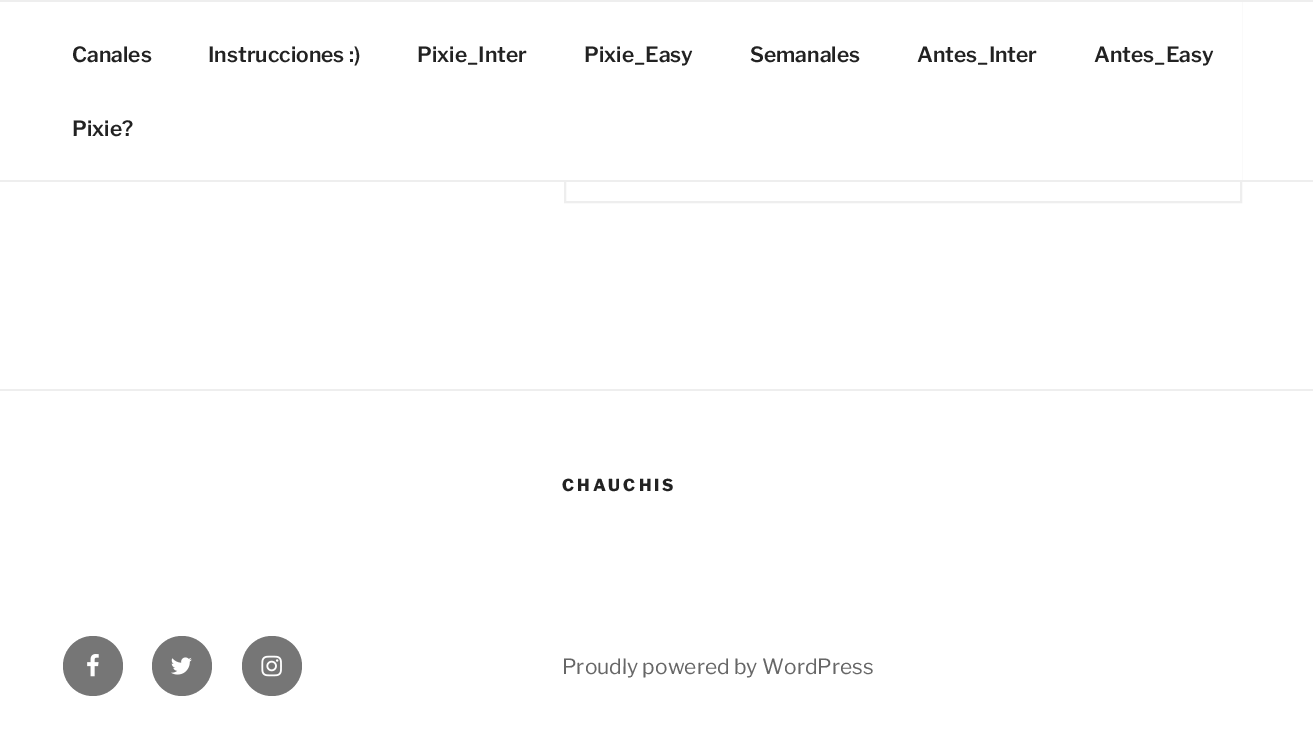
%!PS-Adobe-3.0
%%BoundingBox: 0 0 1313 739
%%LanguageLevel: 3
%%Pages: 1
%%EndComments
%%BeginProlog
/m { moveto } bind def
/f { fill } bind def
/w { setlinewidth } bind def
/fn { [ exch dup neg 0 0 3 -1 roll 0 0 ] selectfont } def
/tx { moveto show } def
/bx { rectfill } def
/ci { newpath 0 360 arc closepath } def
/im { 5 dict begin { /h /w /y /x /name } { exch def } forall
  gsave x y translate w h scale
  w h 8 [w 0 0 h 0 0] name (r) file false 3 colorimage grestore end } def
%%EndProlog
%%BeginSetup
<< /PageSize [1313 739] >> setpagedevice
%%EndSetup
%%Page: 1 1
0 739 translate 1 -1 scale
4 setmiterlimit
1 setgray
0 0 1313 739 bx
0.933 setgray
2 w
565 -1 676 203 rectstroke
1 setgray
564 2 678 178 bx
0.933 setgray
0 0 1313 2 bx
0 180 1313 2 bx
/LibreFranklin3-Thin 21 fn
0.133 setgray
(Canales) 72 62 tx
(Instrucciones :\)) 208 62 tx
(Pixie_Inter) 417 62 tx
(Pixie_Easy) 584 62 tx
(Semanales) 750 62 tx
(Antes_Inter) 917 62 tx
(Antes_Easy) 1094 62 tx
(Pixie?) 72 136 tx
0.933 setgray
0 389 1313 2 bx
/LibreFranklin-Thin 16.5 fn
0.133 setgray
562 491 m 3 0 (CHAUCHIS) ashow
0.463 setgray
93 666 30 ci f
(image0.raw) 87 654 12 23 im
182 666 30 ci f
(image1.raw) 171 657 21 18 im
272 666 30 ci f
(image2.raw) 261 655 21 22 im
/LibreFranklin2-Thin 21 fn
0.4 setgray
(Proudly powered by WordPress) 562 674 tx
showpage
%%EOF
